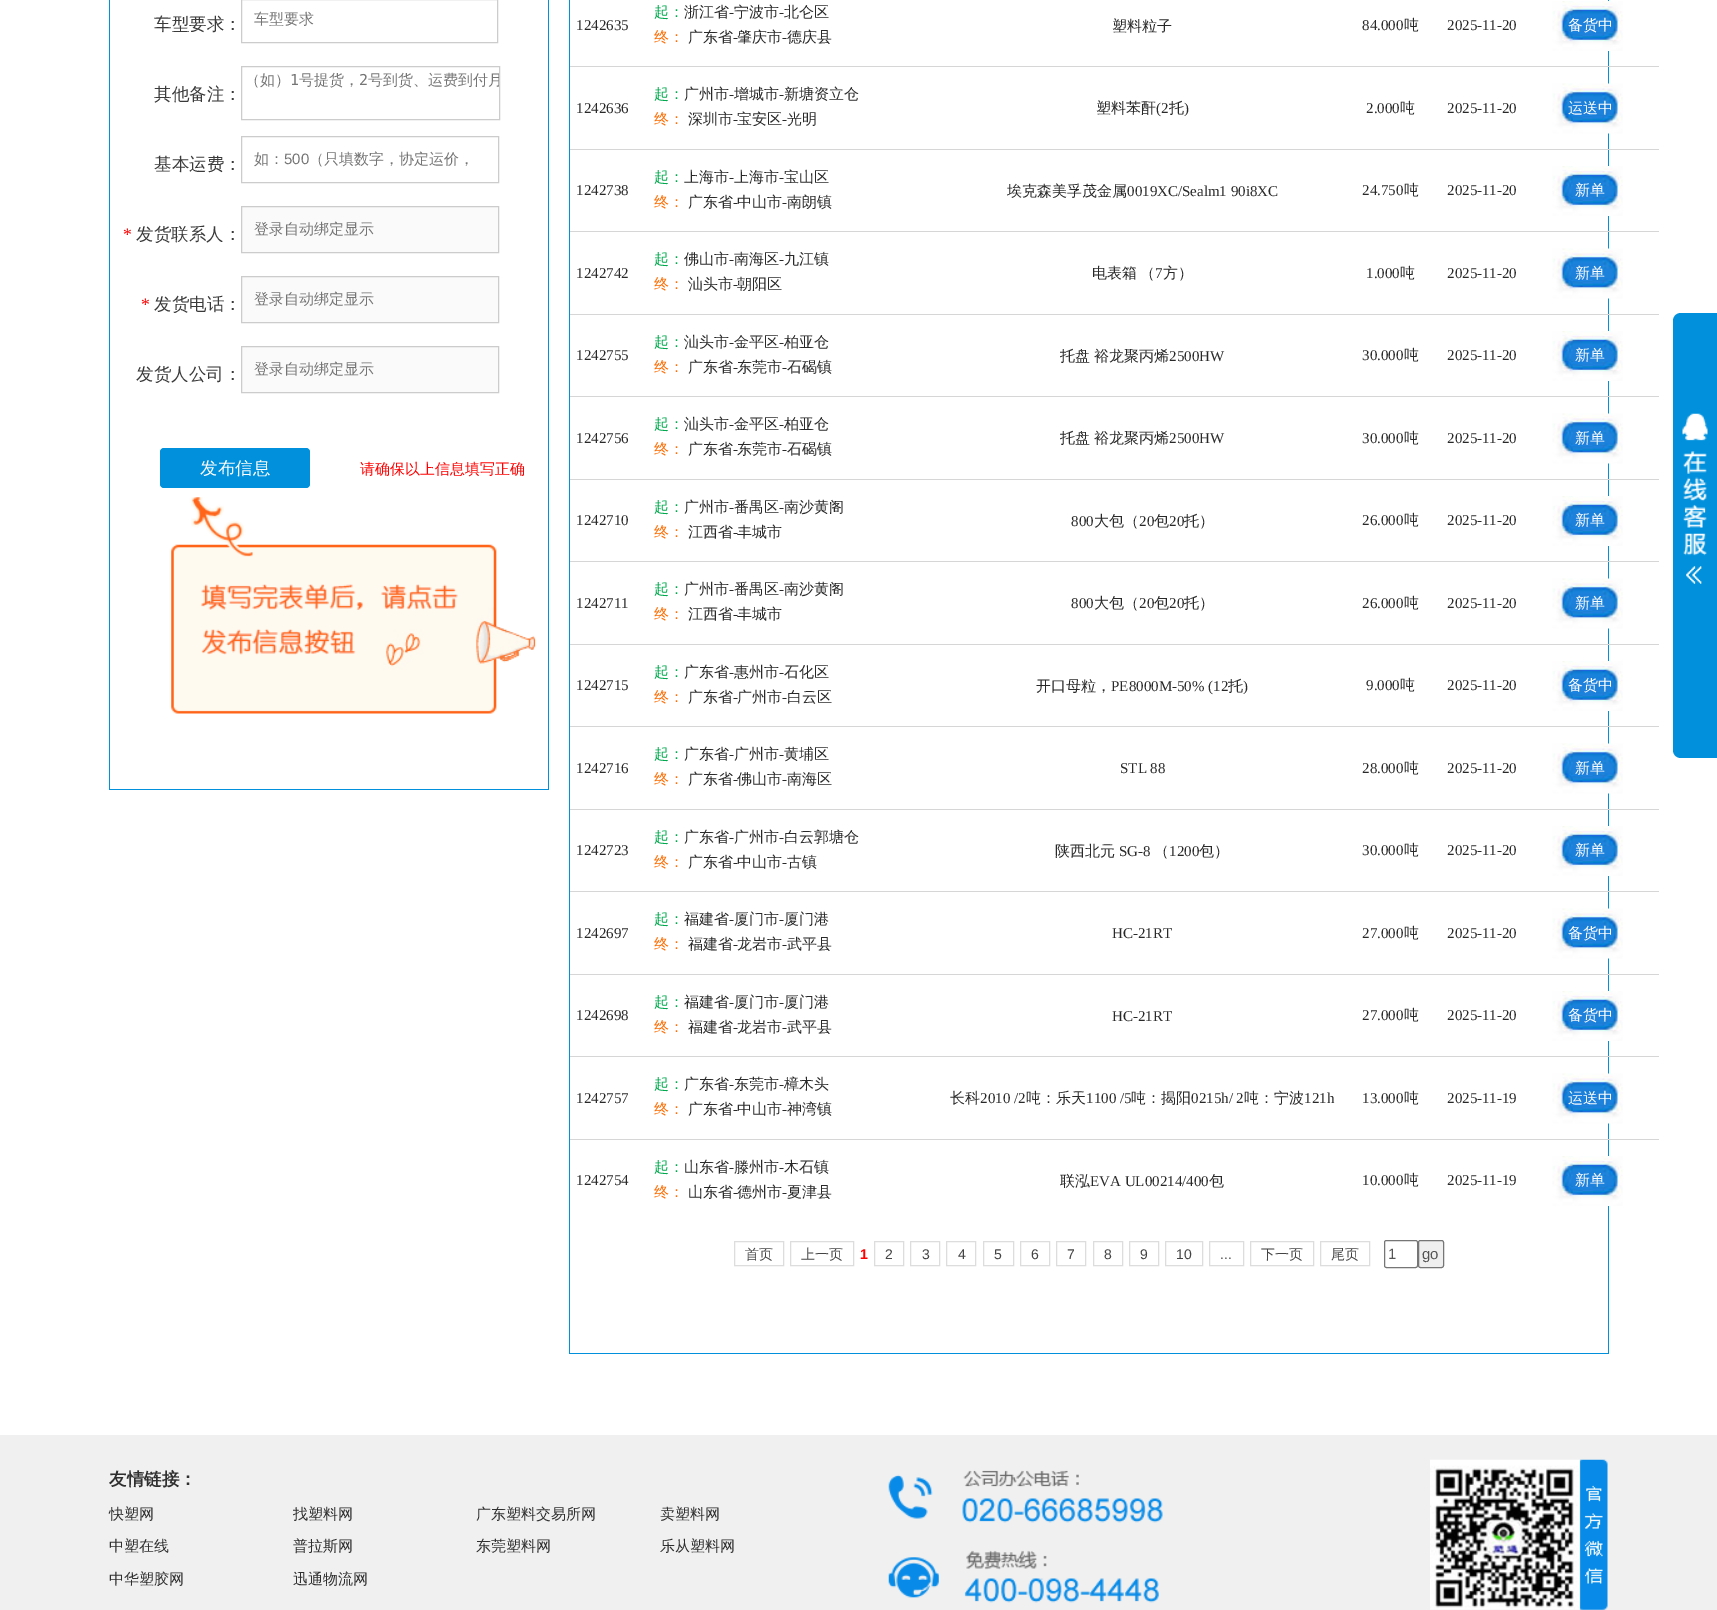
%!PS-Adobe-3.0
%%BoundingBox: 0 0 1717 1610
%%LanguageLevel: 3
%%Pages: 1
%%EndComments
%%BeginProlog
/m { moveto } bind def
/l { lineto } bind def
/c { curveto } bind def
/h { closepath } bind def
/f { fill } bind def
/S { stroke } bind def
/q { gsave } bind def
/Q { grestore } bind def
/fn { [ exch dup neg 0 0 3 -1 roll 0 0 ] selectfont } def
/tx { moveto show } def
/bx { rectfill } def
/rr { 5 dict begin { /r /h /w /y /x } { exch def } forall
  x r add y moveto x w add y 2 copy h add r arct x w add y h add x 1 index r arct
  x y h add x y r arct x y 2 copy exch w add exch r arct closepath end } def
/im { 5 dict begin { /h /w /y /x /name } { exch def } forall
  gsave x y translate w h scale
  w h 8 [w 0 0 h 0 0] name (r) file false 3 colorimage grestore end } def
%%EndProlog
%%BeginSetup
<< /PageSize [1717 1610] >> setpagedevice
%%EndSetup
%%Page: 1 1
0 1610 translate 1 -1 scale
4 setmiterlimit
1 setgray
0 0 1717 1610 bx
0 0.565 0.863 setrgbcolor
548 0 1 790 bx
109 789 440 1 bx
109 0 1 790 bx
/WenQuanYiZenHei-Medium 17.5 fn
0.231 0.227 0.227 setrgbcolor
(车型要求：) 154 30 tx
0.8 setgray
241.5 -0.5 256 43 rectstroke
/WenQuanYiZenHei-Medium 15 fn
0.459 setgray
(车型要求) 254 24 tx
0.8 setgray
241.5 66.5 258 53 rectstroke
0.459 setgray
(（如）) 245 85 tx
/DejaVuSansMono-Regular 15 fn
(1) 290 85 tx
/WenQuanYiZenHei-Medium 15 fn
(号提货，) 299 85 tx
/DejaVuSansMono-Regular 15 fn
(2) 359 85 tx
q
243 68 256 51 rectclip
/WenQuanYiZenHei-Medium 15 fn
(号到货、运费到付月) 368 85 tx
Q
/WenQuanYiZenHei-Medium 17.5 fn
0.231 0.227 0.227 setrgbcolor
(其他备注：) 154 100 tx
(基本运费：) 154 170 tx
0.8 setgray
241.5 136.5 257 46 rectstroke
/WenQuanYiZenHei-Medium 15 fn
0.459 setgray
(如：) 254 164 tx
/LiberationSans-Regular 15 fn
(500) 284 164 tx
/WenQuanYiZenHei-Medium 15 fn
(（只填数字，协定运价，) 309 164 tx
/LiberationSerif-Regular 17.5 fn
1 0 0 setrgbcolor
(*) 123 240 tx
/WenQuanYiZenHei-Medium 17.5 fn
0.231 0.227 0.227 setrgbcolor
(发货联系人：) 136 240 tx
0.98 setgray
241.5 206.5 m 498.5 206.5 l 498.5 252.5 l 241.5 252.5 l h q f Q
0.8 setgray
S
/WenQuanYiZenHei-Medium 15 fn
0.459 setgray
(登录自动绑定显示) 254 234 tx
/LiberationSerif-Regular 17.5 fn
1 0 0 setrgbcolor
(*) 141 310 tx
/WenQuanYiZenHei-Medium 17.5 fn
0.231 0.227 0.227 setrgbcolor
(发货电话：) 154 310 tx
0.98 setgray
241.5 276.5 m 498.5 276.5 l 498.5 322.5 l 241.5 322.5 l h q f Q
0.8 setgray
S
/WenQuanYiZenHei-Medium 15 fn
0.459 setgray
(登录自动绑定显示) 254 304 tx
/WenQuanYiZenHei-Medium 17.5 fn
0.231 0.227 0.227 setrgbcolor
(发货人公司：) 136 380 tx
0.98 setgray
241.5 346.5 m 498.5 346.5 l 498.5 392.5 l 241.5 392.5 l h q f Q
0.8 setgray
S
/WenQuanYiZenHei-Medium 15 fn
0.459 setgray
(登录自动绑定显示) 254 374 tx
0 0.565 0.863 setrgbcolor
160 448 150 40 4 rr f
/WenQuanYiZenHei-Medium 17.5 fn
1 setgray
(发布信息) 200 474 tx
/WenQuanYiZenHei-Medium 15 fn
1 0 0 setrgbcolor
(请确保以上信息填写正确) 360 474 tx
(image0.raw) 171 497 365 217 im
0 0.565 0.863 setrgbcolor
1608 0 1 1354 bx
569 1353 1040 1 bx
569 0 1 1354 bx
/LiberationSerif-Regular 15 fn
0.161 setgray
(1242635) 576 30 tx
/WenQuanYiZenHei-Medium 15 fn
0 0.659 0.302 setrgbcolor
(起：) 654 17 tx
0.161 setgray
(浙江省) 684 17 tx
/LiberationSerif-Regular 15 fn
(-) 729 17 tx
/WenQuanYiZenHei-Medium 15 fn
(宁波市) 734 17 tx
/LiberationSerif-Regular 15 fn
(-) 779 17 tx
/WenQuanYiZenHei-Medium 15 fn
(北仑区) 784 17 tx
1 0.424 0 setrgbcolor
(终：) 654 42 tx
0.161 setgray
(广东省) 688 42 tx
/LiberationSerif-Regular 15 fn
(-) 733 42 tx
/WenQuanYiZenHei-Medium 15 fn
(肇庆市) 737 42 tx
/LiberationSerif-Regular 15 fn
(-) 782 42 tx
/WenQuanYiZenHei-Medium 15 fn
(德庆县) 787 42 tx
(塑料粒子) 1112 31 tx
/LiberationSerif-Regular 15 fn
(84.000) 1362 30 tx
/WenQuanYiZenHei-Medium 15 fn
(吨) 1404 30 tx
/LiberationSerif-Regular 15 fn
(2025-11-20) 1447 30 tx
(image1.raw) 1552 1 71 50 im
/WenQuanYiZenHei-Medium 15 fn
1 setgray
(备货中) 1568 30 tx
/LiberationSerif-Regular 15 fn
0.161 setgray
(1242636) 576 113 tx
/WenQuanYiZenHei-Medium 15 fn
0 0.659 0.302 setrgbcolor
(起：) 654 99 tx
0.161 setgray
(广州市) 684 99 tx
/LiberationSerif-Regular 15 fn
(-) 729 99 tx
/WenQuanYiZenHei-Medium 15 fn
(增城市) 734 99 tx
/LiberationSerif-Regular 15 fn
(-) 779 99 tx
/WenQuanYiZenHei-Medium 15 fn
(新塘资立仓) 784 99 tx
1 0.424 0 setrgbcolor
(终：) 654 124 tx
0.161 setgray
(深圳市) 688 124 tx
/LiberationSerif-Regular 15 fn
(-) 733 124 tx
/WenQuanYiZenHei-Medium 15 fn
(宝安区) 737 124 tx
/LiberationSerif-Regular 15 fn
(-) 782 124 tx
/WenQuanYiZenHei-Medium 15 fn
(光明) 787 124 tx
(塑料苯酐) 1096 113 tx
/LiberationSerif-Regular 15 fn
(\(2) 1156 113 tx
/WenQuanYiZenHei-Medium 15 fn
(托) 1169 113 tx
/LiberationSerif-Regular 15 fn
(\)) 1184 113 tx
(2.000) 1366 113 tx
/WenQuanYiZenHei-Medium 15 fn
(吨) 1400 113 tx
/LiberationSerif-Regular 15 fn
(2025-11-20) 1447 113 tx
0.843 0.839 0.839 setrgbcolor
570 66 1089 1 bx
(image2.raw) 1552 83 71 51 im
/WenQuanYiZenHei-Medium 15 fn
1 setgray
(运送中) 1568 113 tx
/LiberationSerif-Regular 15 fn
0.161 setgray
(1242738) 576 195 tx
/WenQuanYiZenHei-Medium 15 fn
0 0.659 0.302 setrgbcolor
(起：) 654 182 tx
0.161 setgray
(上海市) 684 182 tx
/LiberationSerif-Regular 15 fn
(-) 729 182 tx
/WenQuanYiZenHei-Medium 15 fn
(上海市) 734 182 tx
/LiberationSerif-Regular 15 fn
(-) 779 182 tx
/WenQuanYiZenHei-Medium 15 fn
(宝山区) 784 182 tx
1 0.424 0 setrgbcolor
(终：) 654 207 tx
0.161 setgray
(广东省) 688 207 tx
/LiberationSerif-Regular 15 fn
(-) 733 207 tx
/WenQuanYiZenHei-Medium 15 fn
(中山市) 737 207 tx
/LiberationSerif-Regular 15 fn
(-) 782 207 tx
/WenQuanYiZenHei-Medium 15 fn
(南朗镇) 787 207 tx
(埃克森美孚茂金属) 1007 196 tx
/LiberationSerif-Regular 15 fn
(0019XC/Sealm1 90i8XC) 1127 196 tx
(24.750) 1362 195 tx
/WenQuanYiZenHei-Medium 15 fn
(吨) 1404 195 tx
/LiberationSerif-Regular 15 fn
(2025-11-20) 1447 195 tx
0.843 0.839 0.839 setrgbcolor
570 149 1089 1 bx
(image1.raw) 1552 166 71 50 im
/WenQuanYiZenHei-Medium 15 fn
1 setgray
(新单) 1575 195 tx
/LiberationSerif-Regular 15 fn
0.161 setgray
(1242742) 576 278 tx
/WenQuanYiZenHei-Medium 15 fn
0 0.659 0.302 setrgbcolor
(起：) 654 264 tx
0.161 setgray
(佛山市) 684 264 tx
/LiberationSerif-Regular 15 fn
(-) 729 264 tx
/WenQuanYiZenHei-Medium 15 fn
(南海区) 734 264 tx
/LiberationSerif-Regular 15 fn
(-) 779 264 tx
/WenQuanYiZenHei-Medium 15 fn
(九江镇) 784 264 tx
1 0.424 0 setrgbcolor
(终：) 654 289 tx
0.161 setgray
(汕头市) 688 289 tx
/LiberationSerif-Regular 15 fn
(-) 733 289 tx
/WenQuanYiZenHei-Medium 15 fn
(朝阳区) 737 289 tx
1092 278 m -1 0 32 (电表箱 （) widthshow
/LiberationSerif-Regular 15 fn
(7) 1155 278 tx
/WenQuanYiZenHei-Medium 15 fn
(方）) 1163 278 tx
/LiberationSerif-Regular 15 fn
(1.000) 1366 278 tx
/WenQuanYiZenHei-Medium 15 fn
(吨) 1400 278 tx
/LiberationSerif-Regular 15 fn
(2025-11-20) 1447 278 tx
0.843 0.839 0.839 setrgbcolor
570 231 1089 1 bx
(image2.raw) 1552 248 71 51 im
/WenQuanYiZenHei-Medium 15 fn
1 setgray
(新单) 1575 278 tx
/LiberationSerif-Regular 15 fn
0.161 setgray
(1242755) 576 360 tx
/WenQuanYiZenHei-Medium 15 fn
0 0.659 0.302 setrgbcolor
(起：) 654 347 tx
0.161 setgray
(汕头市) 684 347 tx
/LiberationSerif-Regular 15 fn
(-) 729 347 tx
/WenQuanYiZenHei-Medium 15 fn
(金平区) 734 347 tx
/LiberationSerif-Regular 15 fn
(-) 779 347 tx
/WenQuanYiZenHei-Medium 15 fn
(柏亚仓) 784 347 tx
1 0.424 0 setrgbcolor
(终：) 654 372 tx
0.161 setgray
(广东省) 688 372 tx
/LiberationSerif-Regular 15 fn
(-) 733 372 tx
/WenQuanYiZenHei-Medium 15 fn
(东莞市) 737 372 tx
/LiberationSerif-Regular 15 fn
(-) 782 372 tx
/WenQuanYiZenHei-Medium 15 fn
(石碣镇) 787 372 tx
(托盘) 1060 361 tx
(裕龙聚丙烯) 1094 361 tx
/LiberationSerif-Regular 15 fn
(2500HW) 1169 361 tx
(30.000) 1362 360 tx
/WenQuanYiZenHei-Medium 15 fn
(吨) 1404 360 tx
/LiberationSerif-Regular 15 fn
(2025-11-20) 1447 360 tx
0.843 0.839 0.839 setrgbcolor
570 314 1089 1 bx
(image3.raw) 1552 331 71 50 im
/WenQuanYiZenHei-Medium 15 fn
1 setgray
(新单) 1575 360 tx
/LiberationSerif-Regular 15 fn
0.161 setgray
(1242756) 576 443 tx
/WenQuanYiZenHei-Medium 15 fn
0 0.659 0.302 setrgbcolor
(起：) 654 429 tx
0.161 setgray
(汕头市) 684 429 tx
/LiberationSerif-Regular 15 fn
(-) 729 429 tx
/WenQuanYiZenHei-Medium 15 fn
(金平区) 734 429 tx
/LiberationSerif-Regular 15 fn
(-) 779 429 tx
/WenQuanYiZenHei-Medium 15 fn
(柏亚仓) 784 429 tx
1 0.424 0 setrgbcolor
(终：) 654 454 tx
0.161 setgray
(广东省) 688 454 tx
/LiberationSerif-Regular 15 fn
(-) 733 454 tx
/WenQuanYiZenHei-Medium 15 fn
(东莞市) 737 454 tx
/LiberationSerif-Regular 15 fn
(-) 782 454 tx
/WenQuanYiZenHei-Medium 15 fn
(石碣镇) 787 454 tx
(托盘) 1060 443 tx
(裕龙聚丙烯) 1094 443 tx
/LiberationSerif-Regular 15 fn
(2500HW) 1169 443 tx
(30.000) 1362 443 tx
/WenQuanYiZenHei-Medium 15 fn
(吨) 1404 443 tx
/LiberationSerif-Regular 15 fn
(2025-11-20) 1447 443 tx
0.843 0.839 0.839 setrgbcolor
570 396 1089 1 bx
(image2.raw) 1552 413 71 51 im
/WenQuanYiZenHei-Medium 15 fn
1 setgray
(新单) 1575 443 tx
/LiberationSerif-Regular 15 fn
0.161 setgray
(1242710) 576 525 tx
/WenQuanYiZenHei-Medium 15 fn
0 0.659 0.302 setrgbcolor
(起：) 654 512 tx
0.161 setgray
(广州市) 684 512 tx
/LiberationSerif-Regular 15 fn
(-) 729 512 tx
/WenQuanYiZenHei-Medium 15 fn
(番禺区) 734 512 tx
/LiberationSerif-Regular 15 fn
(-) 779 512 tx
/WenQuanYiZenHei-Medium 15 fn
(南沙黄阁) 784 512 tx
1 0.424 0 setrgbcolor
(终：) 654 537 tx
0.161 setgray
(江西省) 688 537 tx
/LiberationSerif-Regular 15 fn
(-) 733 537 tx
/WenQuanYiZenHei-Medium 15 fn
(丰城市) 737 537 tx
/LiberationSerif-Regular 15 fn
(800) 1071 526 tx
/WenQuanYiZenHei-Medium 15 fn
(大包（) 1094 526 tx
/LiberationSerif-Regular 15 fn
(20) 1139 526 tx
/WenQuanYiZenHei-Medium 15 fn
(包) 1154 526 tx
/LiberationSerif-Regular 15 fn
(20) 1169 526 tx
/WenQuanYiZenHei-Medium 15 fn
(托）) 1184 526 tx
/LiberationSerif-Regular 15 fn
(26.000) 1362 525 tx
/WenQuanYiZenHei-Medium 15 fn
(吨) 1404 525 tx
/LiberationSerif-Regular 15 fn
(2025-11-20) 1447 525 tx
0.843 0.839 0.839 setrgbcolor
570 479 1089 1 bx
(image1.raw) 1552 496 71 50 im
/WenQuanYiZenHei-Medium 15 fn
1 setgray
(新单) 1575 525 tx
/LiberationSerif-Regular 15 fn
0.161 setgray
(1242711) 576 608 tx
/WenQuanYiZenHei-Medium 15 fn
0 0.659 0.302 setrgbcolor
(起：) 654 594 tx
0.161 setgray
(广州市) 684 594 tx
/LiberationSerif-Regular 15 fn
(-) 729 594 tx
/WenQuanYiZenHei-Medium 15 fn
(番禺区) 734 594 tx
/LiberationSerif-Regular 15 fn
(-) 779 594 tx
/WenQuanYiZenHei-Medium 15 fn
(南沙黄阁) 784 594 tx
1 0.424 0 setrgbcolor
(终：) 654 619 tx
0.161 setgray
(江西省) 688 619 tx
/LiberationSerif-Regular 15 fn
(-) 733 619 tx
/WenQuanYiZenHei-Medium 15 fn
(丰城市) 737 619 tx
/LiberationSerif-Regular 15 fn
(800) 1071 608 tx
/WenQuanYiZenHei-Medium 15 fn
(大包（) 1094 608 tx
/LiberationSerif-Regular 15 fn
(20) 1139 608 tx
/WenQuanYiZenHei-Medium 15 fn
(包) 1154 608 tx
/LiberationSerif-Regular 15 fn
(20) 1169 608 tx
/WenQuanYiZenHei-Medium 15 fn
(托）) 1184 608 tx
/LiberationSerif-Regular 15 fn
(26.000) 1362 608 tx
/WenQuanYiZenHei-Medium 15 fn
(吨) 1404 608 tx
/LiberationSerif-Regular 15 fn
(2025-11-20) 1447 608 tx
0.843 0.839 0.839 setrgbcolor
570 561 1089 1 bx
(image2.raw) 1552 578 71 51 im
/WenQuanYiZenHei-Medium 15 fn
1 setgray
(新单) 1575 608 tx
/LiberationSerif-Regular 15 fn
0.161 setgray
(1242715) 576 690 tx
/WenQuanYiZenHei-Medium 15 fn
0 0.659 0.302 setrgbcolor
(起：) 654 677 tx
0.161 setgray
(广东省) 684 677 tx
/LiberationSerif-Regular 15 fn
(-) 729 677 tx
/WenQuanYiZenHei-Medium 15 fn
(惠州市) 734 677 tx
/LiberationSerif-Regular 15 fn
(-) 779 677 tx
/WenQuanYiZenHei-Medium 15 fn
(石化区) 784 677 tx
1 0.424 0 setrgbcolor
(终：) 654 702 tx
0.161 setgray
(广东省) 688 702 tx
/LiberationSerif-Regular 15 fn
(-) 733 702 tx
/WenQuanYiZenHei-Medium 15 fn
(广州市) 737 702 tx
/LiberationSerif-Regular 15 fn
(-) 782 702 tx
/WenQuanYiZenHei-Medium 15 fn
(白云区) 787 702 tx
(开口母粒，) 1036 691 tx
/LiberationSerif-Regular 15 fn
(PE8000M-50% \(12) 1111 691 tx
/WenQuanYiZenHei-Medium 15 fn
(托) 1228 691 tx
/LiberationSerif-Regular 15 fn
(\)) 1243 691 tx
(9.000) 1366 690 tx
/WenQuanYiZenHei-Medium 15 fn
(吨) 1400 690 tx
/LiberationSerif-Regular 15 fn
(2025-11-20) 1447 690 tx
0.843 0.839 0.839 setrgbcolor
570 644 1089 1 bx
(image1.raw) 1552 661 71 50 im
/WenQuanYiZenHei-Medium 15 fn
1 setgray
(备货中) 1568 690 tx
/LiberationSerif-Regular 15 fn
0.161 setgray
(1242716) 576 773 tx
/WenQuanYiZenHei-Medium 15 fn
0 0.659 0.302 setrgbcolor
(起：) 654 759 tx
0.161 setgray
(广东省) 684 759 tx
/LiberationSerif-Regular 15 fn
(-) 729 759 tx
/WenQuanYiZenHei-Medium 15 fn
(广州市) 734 759 tx
/LiberationSerif-Regular 15 fn
(-) 779 759 tx
/WenQuanYiZenHei-Medium 15 fn
(黄埔区) 784 759 tx
1 0.424 0 setrgbcolor
(终：) 654 784 tx
0.161 setgray
(广东省) 688 784 tx
/LiberationSerif-Regular 15 fn
(-) 733 784 tx
/WenQuanYiZenHei-Medium 15 fn
(佛山市) 737 784 tx
/LiberationSerif-Regular 15 fn
(-) 782 784 tx
/WenQuanYiZenHei-Medium 15 fn
(南海区) 787 784 tx
/LiberationSerif-Regular 15 fn
(STL 88) 1120 773 tx
(28.000) 1362 773 tx
/WenQuanYiZenHei-Medium 15 fn
(吨) 1404 773 tx
/LiberationSerif-Regular 15 fn
(2025-11-20) 1447 773 tx
0.843 0.839 0.839 setrgbcolor
570 726 1089 1 bx
(image2.raw) 1552 743 71 51 im
/WenQuanYiZenHei-Medium 15 fn
1 setgray
(新单) 1575 773 tx
/LiberationSerif-Regular 15 fn
0.161 setgray
(1242723) 576 855 tx
/WenQuanYiZenHei-Medium 15 fn
0 0.659 0.302 setrgbcolor
(起：) 654 842 tx
0.161 setgray
(广东省) 684 842 tx
/LiberationSerif-Regular 15 fn
(-) 729 842 tx
/WenQuanYiZenHei-Medium 15 fn
(广州市) 734 842 tx
/LiberationSerif-Regular 15 fn
(-) 779 842 tx
/WenQuanYiZenHei-Medium 15 fn
(白云郭塘仓) 784 842 tx
1 0.424 0 setrgbcolor
(终：) 654 867 tx
0.161 setgray
(广东省) 688 867 tx
/LiberationSerif-Regular 15 fn
(-) 733 867 tx
/WenQuanYiZenHei-Medium 15 fn
(中山市) 737 867 tx
/LiberationSerif-Regular 15 fn
(-) 782 867 tx
/WenQuanYiZenHei-Medium 15 fn
(古镇) 787 867 tx
(陕西北元) 1055 856 tx
/LiberationSerif-Regular 15 fn
(SG-8) 1119 856 tx
/WenQuanYiZenHei-Medium 15 fn
(（) 1154 856 tx
/LiberationSerif-Regular 15 fn
(1200) 1169 856 tx
/WenQuanYiZenHei-Medium 15 fn
(包）) 1199 856 tx
/LiberationSerif-Regular 15 fn
(30.000) 1362 855 tx
/WenQuanYiZenHei-Medium 15 fn
(吨) 1404 855 tx
/LiberationSerif-Regular 15 fn
(2025-11-20) 1447 855 tx
0.843 0.839 0.839 setrgbcolor
570 809 1089 1 bx
(image1.raw) 1552 826 71 50 im
/WenQuanYiZenHei-Medium 15 fn
1 setgray
(新单) 1575 855 tx
/LiberationSerif-Regular 15 fn
0.161 setgray
(1242697) 576 938 tx
/WenQuanYiZenHei-Medium 15 fn
0 0.659 0.302 setrgbcolor
(起：) 654 924 tx
0.161 setgray
(福建省) 684 924 tx
/LiberationSerif-Regular 15 fn
(-) 729 924 tx
/WenQuanYiZenHei-Medium 15 fn
(厦门市) 734 924 tx
/LiberationSerif-Regular 15 fn
(-) 779 924 tx
/WenQuanYiZenHei-Medium 15 fn
(厦门港) 784 924 tx
1 0.424 0 setrgbcolor
(终：) 654 949 tx
0.161 setgray
(福建省) 688 949 tx
/LiberationSerif-Regular 15 fn
(-) 733 949 tx
/WenQuanYiZenHei-Medium 15 fn
(龙岩市) 737 949 tx
/LiberationSerif-Regular 15 fn
(-) 782 949 tx
/WenQuanYiZenHei-Medium 15 fn
(武平县) 787 949 tx
/LiberationSerif-Regular 15 fn
(HC-21RT) 1112 938 tx
(27.000) 1362 938 tx
/WenQuanYiZenHei-Medium 15 fn
(吨) 1404 938 tx
/LiberationSerif-Regular 15 fn
(2025-11-20) 1447 938 tx
0.843 0.839 0.839 setrgbcolor
570 891 1089 1 bx
(image2.raw) 1552 908 71 51 im
/WenQuanYiZenHei-Medium 15 fn
1 setgray
(备货中) 1568 938 tx
/LiberationSerif-Regular 15 fn
0.161 setgray
(1242698) 576 1020 tx
/WenQuanYiZenHei-Medium 15 fn
0 0.659 0.302 setrgbcolor
(起：) 654 1007 tx
0.161 setgray
(福建省) 684 1007 tx
/LiberationSerif-Regular 15 fn
(-) 729 1007 tx
/WenQuanYiZenHei-Medium 15 fn
(厦门市) 734 1007 tx
/LiberationSerif-Regular 15 fn
(-) 779 1007 tx
/WenQuanYiZenHei-Medium 15 fn
(厦门港) 784 1007 tx
1 0.424 0 setrgbcolor
(终：) 654 1032 tx
0.161 setgray
(福建省) 688 1032 tx
/LiberationSerif-Regular 15 fn
(-) 733 1032 tx
/WenQuanYiZenHei-Medium 15 fn
(龙岩市) 737 1032 tx
/LiberationSerif-Regular 15 fn
(-) 782 1032 tx
/WenQuanYiZenHei-Medium 15 fn
(武平县) 787 1032 tx
/LiberationSerif-Regular 15 fn
(HC-21RT) 1112 1021 tx
(27.000) 1362 1020 tx
/WenQuanYiZenHei-Medium 15 fn
(吨) 1404 1020 tx
/LiberationSerif-Regular 15 fn
(2025-11-20) 1447 1020 tx
0.843 0.839 0.839 setrgbcolor
570 974 1089 1 bx
(image4.raw) 1552 991 71 50 im
/WenQuanYiZenHei-Medium 15 fn
1 setgray
(备货中) 1568 1020 tx
/LiberationSerif-Regular 15 fn
0.161 setgray
(1242757) 576 1103 tx
/WenQuanYiZenHei-Medium 15 fn
0 0.659 0.302 setrgbcolor
(起：) 654 1089 tx
0.161 setgray
(广东省) 684 1089 tx
/LiberationSerif-Regular 15 fn
(-) 729 1089 tx
/WenQuanYiZenHei-Medium 15 fn
(东莞市) 734 1089 tx
/LiberationSerif-Regular 15 fn
(-) 779 1089 tx
/WenQuanYiZenHei-Medium 15 fn
(樟木头) 784 1089 tx
1 0.424 0 setrgbcolor
(终：) 654 1114 tx
0.161 setgray
(广东省) 688 1114 tx
/LiberationSerif-Regular 15 fn
(-) 733 1114 tx
/WenQuanYiZenHei-Medium 15 fn
(中山市) 737 1114 tx
/LiberationSerif-Regular 15 fn
(-) 782 1114 tx
/WenQuanYiZenHei-Medium 15 fn
(神湾镇) 787 1114 tx
(长科) 950 1103 tx
/LiberationSerif-Regular 15 fn
(2010 /2) 980 1103 tx
/WenQuanYiZenHei-Medium 15 fn
(吨：乐天) 1026 1103 tx
/LiberationSerif-Regular 15 fn
(1100 /5) 1086 1103 tx
/WenQuanYiZenHei-Medium 15 fn
(吨：揭阳) 1131 1103 tx
/LiberationSerif-Regular 15 fn
(0215h/ 2) 1191 1103 tx
/WenQuanYiZenHei-Medium 15 fn
(吨：宁波) 1244 1103 tx
/LiberationSerif-Regular 15 fn
(121h) 1304 1103 tx
(13.000) 1362 1103 tx
/WenQuanYiZenHei-Medium 15 fn
(吨) 1404 1103 tx
/LiberationSerif-Regular 15 fn
(2025-11-19) 1447 1103 tx
0.843 0.839 0.839 setrgbcolor
570 1056 1089 1 bx
(image2.raw) 1552 1073 71 51 im
/WenQuanYiZenHei-Medium 15 fn
1 setgray
(运送中) 1568 1103 tx
/LiberationSerif-Regular 15 fn
0.161 setgray
(1242754) 576 1185 tx
/WenQuanYiZenHei-Medium 15 fn
0 0.659 0.302 setrgbcolor
(起：) 654 1172 tx
0.161 setgray
(山东省) 684 1172 tx
/LiberationSerif-Regular 15 fn
(-) 729 1172 tx
/WenQuanYiZenHei-Medium 15 fn
(滕州市) 734 1172 tx
/LiberationSerif-Regular 15 fn
(-) 779 1172 tx
/WenQuanYiZenHei-Medium 15 fn
(木石镇) 784 1172 tx
1 0.424 0 setrgbcolor
(终：) 654 1197 tx
0.161 setgray
(山东省) 688 1197 tx
/LiberationSerif-Regular 15 fn
(-) 733 1197 tx
/WenQuanYiZenHei-Medium 15 fn
(德州市) 737 1197 tx
/LiberationSerif-Regular 15 fn
(-) 782 1197 tx
/WenQuanYiZenHei-Medium 15 fn
(夏津县) 787 1197 tx
(联泓) 1060 1186 tx
/LiberationSerif-Regular 15 fn
(EVA UL00214/400) 1090 1186 tx
/WenQuanYiZenHei-Medium 15 fn
(包) 1209 1186 tx
/LiberationSerif-Regular 15 fn
(10.000) 1362 1185 tx
/WenQuanYiZenHei-Medium 15 fn
(吨) 1404 1185 tx
/LiberationSerif-Regular 15 fn
(2025-11-19) 1447 1185 tx
0.843 0.839 0.839 setrgbcolor
570 1139 1089 1 bx
(image1.raw) 1552 1156 71 50 im
/WenQuanYiZenHei-Medium 15 fn
1 setgray
(新单) 1575 1185 tx
0.867 setgray
734.5 1241.5 49 24 rectstroke
/WenQuanYiZenHei-Medium 14 fn
0.267 setgray
(首页) 745 1259 tx
0.867 setgray
790.5 1241.5 63 24 rectstroke
0.267 setgray
(上一页) 801 1259 tx
/LiberationSans-Bold 14 fn
1 0 0 setrgbcolor
(1) 860 1259 tx
0.867 setgray
874.5 1241.5 29 24 rectstroke
/LiberationSans-Regular 14 fn
0.267 setgray
(2) 885 1259 tx
0.867 setgray
910.5 1241.5 29 24 rectstroke
0.267 setgray
(3) 922 1259 tx
0.867 setgray
946.5 1241.5 29 24 rectstroke
0.267 setgray
(4) 958 1259 tx
0.867 setgray
983.5 1241.5 30 24 rectstroke
0.267 setgray
(5) 994 1259 tx
0.867 setgray
1020.5 1241.5 29 24 rectstroke
0.267 setgray
(6) 1031 1259 tx
0.867 setgray
1056.5 1241.5 29 24 rectstroke
0.267 setgray
(7) 1067 1259 tx
0.867 setgray
1093.5 1241.5 29 24 rectstroke
0.267 setgray
(8) 1104 1259 tx
0.867 setgray
1129.5 1241.5 29 24 rectstroke
0.267 setgray
(9) 1140 1259 tx
0.867 setgray
1165.5 1241.5 37 24 rectstroke
0.267 setgray
(10) 1176 1259 tx
0.867 setgray
1209.5 1241.5 34 24 rectstroke
0.267 setgray
(...) 1220 1259 tx
0.867 setgray
1250.5 1241.5 63 24 rectstroke
/WenQuanYiZenHei-Medium 14 fn
0.267 setgray
(下一页) 1261 1259 tx
0.867 setgray
1320.5 1241.5 49 24 rectstroke
0.267 setgray
(尾页) 1331 1259 tx
0.463 setgray
1384.5 1240.5 33 27 2 rr S
/LiberationSans-Regular 15 fn
0.333 setgray
(1) 1388 1259 tx
0.937 setgray
1418.5 1240.5 25 27 2 rr q f Q
0.463 setgray
S
0.333 setgray
(go) 1422 1259 tx
0 0.565 0.863 setrgbcolor
1681 313 m 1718 313 l 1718 758 l 1681 758 l 1676.5 758 1673 754.5 1673 750 c 1673 321 l 1673 316.5 1676.5 313 1681 313 c h f
(image5.raw) 1682 413 26 171 im
0.941 setgray
0 1435 1717 175 bx
/WenQuanYiZenHei-Bold 17.5 fn
0.184 setgray
(友情链接：) 109 1485 tx
/WenQuanYiZenHei-Medium 15 fn
(快塑网) 109 1519 tx
(找塑料网) 293 1519 tx
(广东塑料交易所网) 476 1519 tx
(卖塑料网) 660 1519 tx
(中塑在线) 109 1551 tx
(普拉斯网) 293 1551 tx
(东莞塑料网) 476 1551 tx
(乐从塑料网) 660 1551 tx
(中华塑胶网) 109 1584 tx
(迅通物流网) 293 1584 tx
(image6.raw) 888 1470 275 133 im
(image7.raw) 1430 1459 178 151 im
showpage
%%EOF
